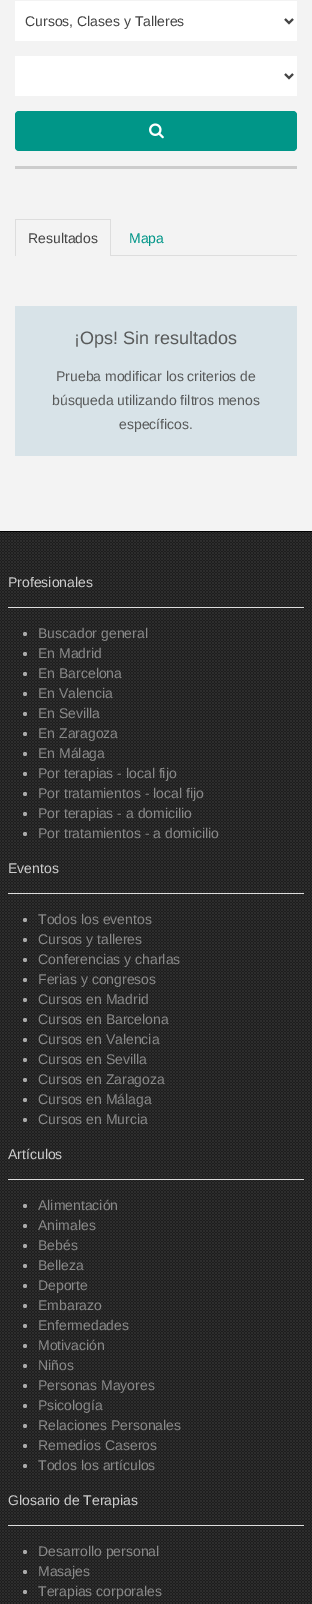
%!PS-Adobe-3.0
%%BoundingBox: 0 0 312 1604
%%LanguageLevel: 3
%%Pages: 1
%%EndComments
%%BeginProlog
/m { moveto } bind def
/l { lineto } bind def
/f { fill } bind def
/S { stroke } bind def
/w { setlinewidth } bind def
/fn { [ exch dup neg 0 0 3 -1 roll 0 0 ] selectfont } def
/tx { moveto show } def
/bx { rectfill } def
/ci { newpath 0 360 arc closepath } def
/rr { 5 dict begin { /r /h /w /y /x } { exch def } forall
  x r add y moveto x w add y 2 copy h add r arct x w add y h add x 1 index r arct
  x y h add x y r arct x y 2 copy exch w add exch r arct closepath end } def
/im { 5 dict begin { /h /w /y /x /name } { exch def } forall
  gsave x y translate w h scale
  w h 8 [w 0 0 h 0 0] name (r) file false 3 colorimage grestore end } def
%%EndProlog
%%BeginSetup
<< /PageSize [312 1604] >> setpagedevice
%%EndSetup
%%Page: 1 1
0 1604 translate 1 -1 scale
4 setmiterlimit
0.953 setgray
0 0 312 1604 bx
1 setgray
15 1 282 40 bx
0.267 setgray
2 w
285 19 m 289 23 l 293 19 l S
/LiberationSans-Regular 14 fn
(Cursos, Clases y Talleres) 25 26 tx
1 setgray
15 56 282 40 bx
0.267 setgray
285 74 m 289 78 l 293 74 l S
0 0.588 0.533 setrgbcolor
15 111 282 40 4 rr f
(image0.raw) 149 123 15 16 im
0.8 setgray
15 166 282 3 bx
0.867 setgray
111 255 186 1 bx
15 219 96 1 bx
110 219 1 37 bx
15 219 1 37 bx
0.267 setgray
(Resultados) 28 243 tx
0 0.588 0.533 setrgbcolor
(Mapa) 129 243 tx
0.847 0.89 0.91 setrgbcolor
15 306 282 150 bx
/LiberationSans-Regular 18 fn
0.345 0.353 0.353 setrgbcolor
(¡Ops! Sin resultados) 74 344 tx
/LiberationSans-Regular 14 fn
(Prueba modificar los criterios de) 56 381 tx
(búsqueda utilizando filtros menos) 52 405 tx
(específicos.) 119 429 tx
0.176 setgray
0 532 312 1072 bx
(image1.raw) 0 532 312 1072 im
0 setgray
0 531 312 1 bx
0.808 setgray
(Profesionales) 8 587 tx
0.867 setgray
8 607 296 1 bx
0.667 setgray
25 634 2 ci f
0.541 setgray
(Buscador general) 38 638 tx
0.667 setgray
25 654 2 ci f
0.541 setgray
(En Madrid) 38 658 tx
0.667 setgray
25 674 2 ci f
0.541 setgray
(En Barcelona) 38 678 tx
0.667 setgray
25 694 2 ci f
0.541 setgray
(En Valencia) 38 698 tx
0.667 setgray
25 714 2 ci f
0.541 setgray
(En Sevilla) 38 718 tx
0.667 setgray
25 734 2 ci f
0.541 setgray
(En Zaragoza) 38 738 tx
0.667 setgray
25 754 2 ci f
0.541 setgray
(En Málaga) 38 758 tx
0.667 setgray
25 774 2 ci f
0.541 setgray
(Por terapias - local fijo) 38 778 tx
0.667 setgray
25 794 2 ci f
0.541 setgray
(Por tratamientos - local fijo) 38 798 tx
0.667 setgray
25 814 2 ci f
0.541 setgray
(Por terapias - a domicilio) 38 818 tx
0.667 setgray
25 834 2 ci f
0.541 setgray
(Por tratamientos - a domicilio) 38 838 tx
0.808 setgray
(Eventos) 8 873 tx
0.867 setgray
8 893 296 1 bx
0.667 setgray
25 920 2 ci f
0.541 setgray
(Todos los eventos) 38 924 tx
0.667 setgray
25 940 2 ci f
0.541 setgray
(Cursos y talleres) 38 944 tx
0.667 setgray
25 960 2 ci f
0.541 setgray
(Conferencias y charlas) 38 964 tx
0.667 setgray
25 980 2 ci f
0.541 setgray
(Ferias y congresos) 38 984 tx
0.667 setgray
25 1000 2 ci f
0.541 setgray
(Cursos en Madrid) 38 1004 tx
0.667 setgray
25 1020 2 ci f
0.541 setgray
(Cursos en Barcelona) 38 1024 tx
0.667 setgray
25 1040 2 ci f
0.541 setgray
(Cursos en Valencia) 38 1044 tx
0.667 setgray
25 1060 2 ci f
0.541 setgray
(Cursos en Sevilla) 38 1064 tx
0.667 setgray
25 1080 2 ci f
0.541 setgray
(Cursos en Zaragoza) 38 1084 tx
0.667 setgray
25 1100 2 ci f
0.541 setgray
(Cursos en Málaga) 38 1104 tx
0.667 setgray
25 1120 2 ci f
0.541 setgray
(Cursos en Murcia) 38 1124 tx
0.808 setgray
(Artículos) 8 1159 tx
0.867 setgray
8 1179 296 1 bx
0.667 setgray
25 1206 2 ci f
0.541 setgray
(Alimentación) 38 1210 tx
0.667 setgray
25 1226 2 ci f
0.541 setgray
(Animales) 38 1230 tx
0.667 setgray
25 1246 2 ci f
0.541 setgray
(Bebés) 38 1250 tx
0.667 setgray
25 1266 2 ci f
0.541 setgray
(Belleza) 38 1270 tx
0.667 setgray
25 1286 2 ci f
0.541 setgray
(Deporte) 38 1290 tx
0.667 setgray
25 1306 2 ci f
0.541 setgray
(Embarazo) 38 1310 tx
0.667 setgray
25 1326 2 ci f
0.541 setgray
(Enfermedades) 38 1330 tx
0.667 setgray
25 1346 2 ci f
0.541 setgray
(Motivación) 38 1350 tx
0.667 setgray
25 1366 2 ci f
0.541 setgray
(Niños) 38 1370 tx
0.667 setgray
25 1386 2 ci f
0.541 setgray
(Personas Mayores) 38 1390 tx
0.667 setgray
25 1406 2 ci f
0.541 setgray
(Psicología) 38 1410 tx
0.667 setgray
25 1426 2 ci f
0.541 setgray
(Relaciones Personales) 38 1430 tx
0.667 setgray
25 1446 2 ci f
0.541 setgray
(Remedios Caseros) 38 1450 tx
0.667 setgray
25 1466 2 ci f
0.541 setgray
(Todos los artículos) 38 1470 tx
0.808 setgray
(Glosario de Terapias) 8 1505 tx
0.867 setgray
8 1525 296 1 bx
0.667 setgray
25 1552 2 ci f
0.541 setgray
(Desarrollo personal) 38 1556 tx
0.667 setgray
25 1572 2 ci f
0.541 setgray
(Masajes) 38 1576 tx
0.667 setgray
25 1592 2 ci f
0.541 setgray
(Terapias corporales) 38 1596 tx
showpage
%%EOF
